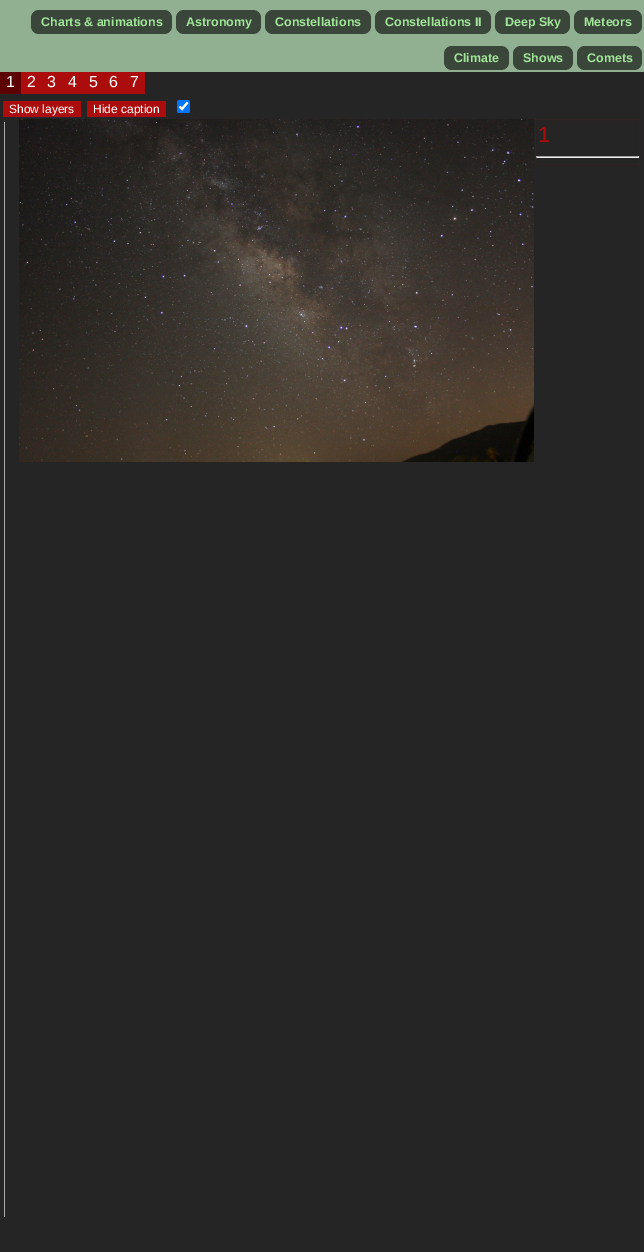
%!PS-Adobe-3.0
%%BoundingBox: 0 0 644 1252
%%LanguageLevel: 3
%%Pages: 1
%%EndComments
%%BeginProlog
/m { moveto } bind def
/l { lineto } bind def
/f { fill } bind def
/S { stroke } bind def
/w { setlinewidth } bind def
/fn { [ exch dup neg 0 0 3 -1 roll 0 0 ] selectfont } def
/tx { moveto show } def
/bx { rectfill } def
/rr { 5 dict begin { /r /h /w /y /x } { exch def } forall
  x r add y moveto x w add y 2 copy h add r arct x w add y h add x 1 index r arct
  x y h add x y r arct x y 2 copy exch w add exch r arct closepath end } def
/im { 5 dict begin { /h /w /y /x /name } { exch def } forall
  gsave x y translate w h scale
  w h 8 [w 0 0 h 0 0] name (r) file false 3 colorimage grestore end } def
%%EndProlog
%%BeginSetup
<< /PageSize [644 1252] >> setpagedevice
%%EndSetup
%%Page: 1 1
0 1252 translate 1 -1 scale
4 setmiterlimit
0.145 setgray
0 0 644 1252 bx
0.565 0.69 0.569 setrgbcolor
0 0 644 72 bx
0.227 0.275 0.227 setrgbcolor
31 10 141 24 8 rr f
/LiberationSans-Bold 12.5 fn
0.635 0.902 0.6 setrgbcolor
(Charts & animations) 41 26 tx
0.227 0.275 0.227 setrgbcolor
176 10 85 24 8 rr f
0.635 0.902 0.6 setrgbcolor
(Astronomy) 186 26 tx
0.227 0.275 0.227 setrgbcolor
265 10 106 24 8 rr f
0.635 0.902 0.6 setrgbcolor
(Constellations) 275 26 tx
0.227 0.275 0.227 setrgbcolor
375 10 116 24 8 rr f
0.635 0.902 0.6 setrgbcolor
(Constellations II) 385 26 tx
0.227 0.275 0.227 setrgbcolor
495 10 75 24 8 rr f
0.635 0.902 0.6 setrgbcolor
(Deep Sky) 505 26 tx
0.227 0.275 0.227 setrgbcolor
574 10 68 24 8 rr f
0.635 0.902 0.6 setrgbcolor
(Meteors) 584 26 tx
0.227 0.275 0.227 setrgbcolor
444 46 65 24 8 rr f
0.635 0.902 0.6 setrgbcolor
(Climate) 454 62 tx
0.227 0.275 0.227 setrgbcolor
513 46 60 24 8 rr f
0.635 0.902 0.6 setrgbcolor
(Shows) 523 62 tx
0.227 0.275 0.227 setrgbcolor
577 46 65 24 8 rr f
0.635 0.902 0.6 setrgbcolor
(Comets) 587 62 tx
0.361 0 0 setrgbcolor
0 72 21 22 bx
/LiberationSans-Regular 16 fn
1 setgray
(1) 6 87 tx
0.671 0.051 0.051 setrgbcolor
21 72 124 22 bx
1 setgray
(2) 27 87 tx
(3) 47 87 tx
(4) 68 87 tx
(5) 89 87 tx
(6) 109 87 tx
(7) 130 87 tx
0.671 0.051 0.051 setrgbcolor
3 101 78 16 bx
/LiberationSans-Regular 12 fn
1 setgray
(Show layers) 9 113 tx
0.671 0.051 0.051 setrgbcolor
87 101 79 16 bx
1 setgray
(Hide caption) 93 113 tx
0 0.459 1 setrgbcolor
177 100 13 13 2 rr f
1 setgray
2.1 w
179.5 106.5 m 182 109 l 187.5 102.5 l S
0.659 setgray
4 122 1 1095 bx
(image0.raw) 19 119 515 343 im
0.196 0.137 0.137 setrgbcolor
1 w
535.5 119.5 104 45 rectstroke
/LiberationSans-Regular 22 fn
0.671 0.051 0.051 setrgbcolor
(1) 538 142 tx
0.624 setgray
536 156 103 1 bx
0.933 setgray
638 156 1 2 bx
536 157 103 1 bx
0.624 setgray
536 156 1 2 bx
showpage
%%EOF
